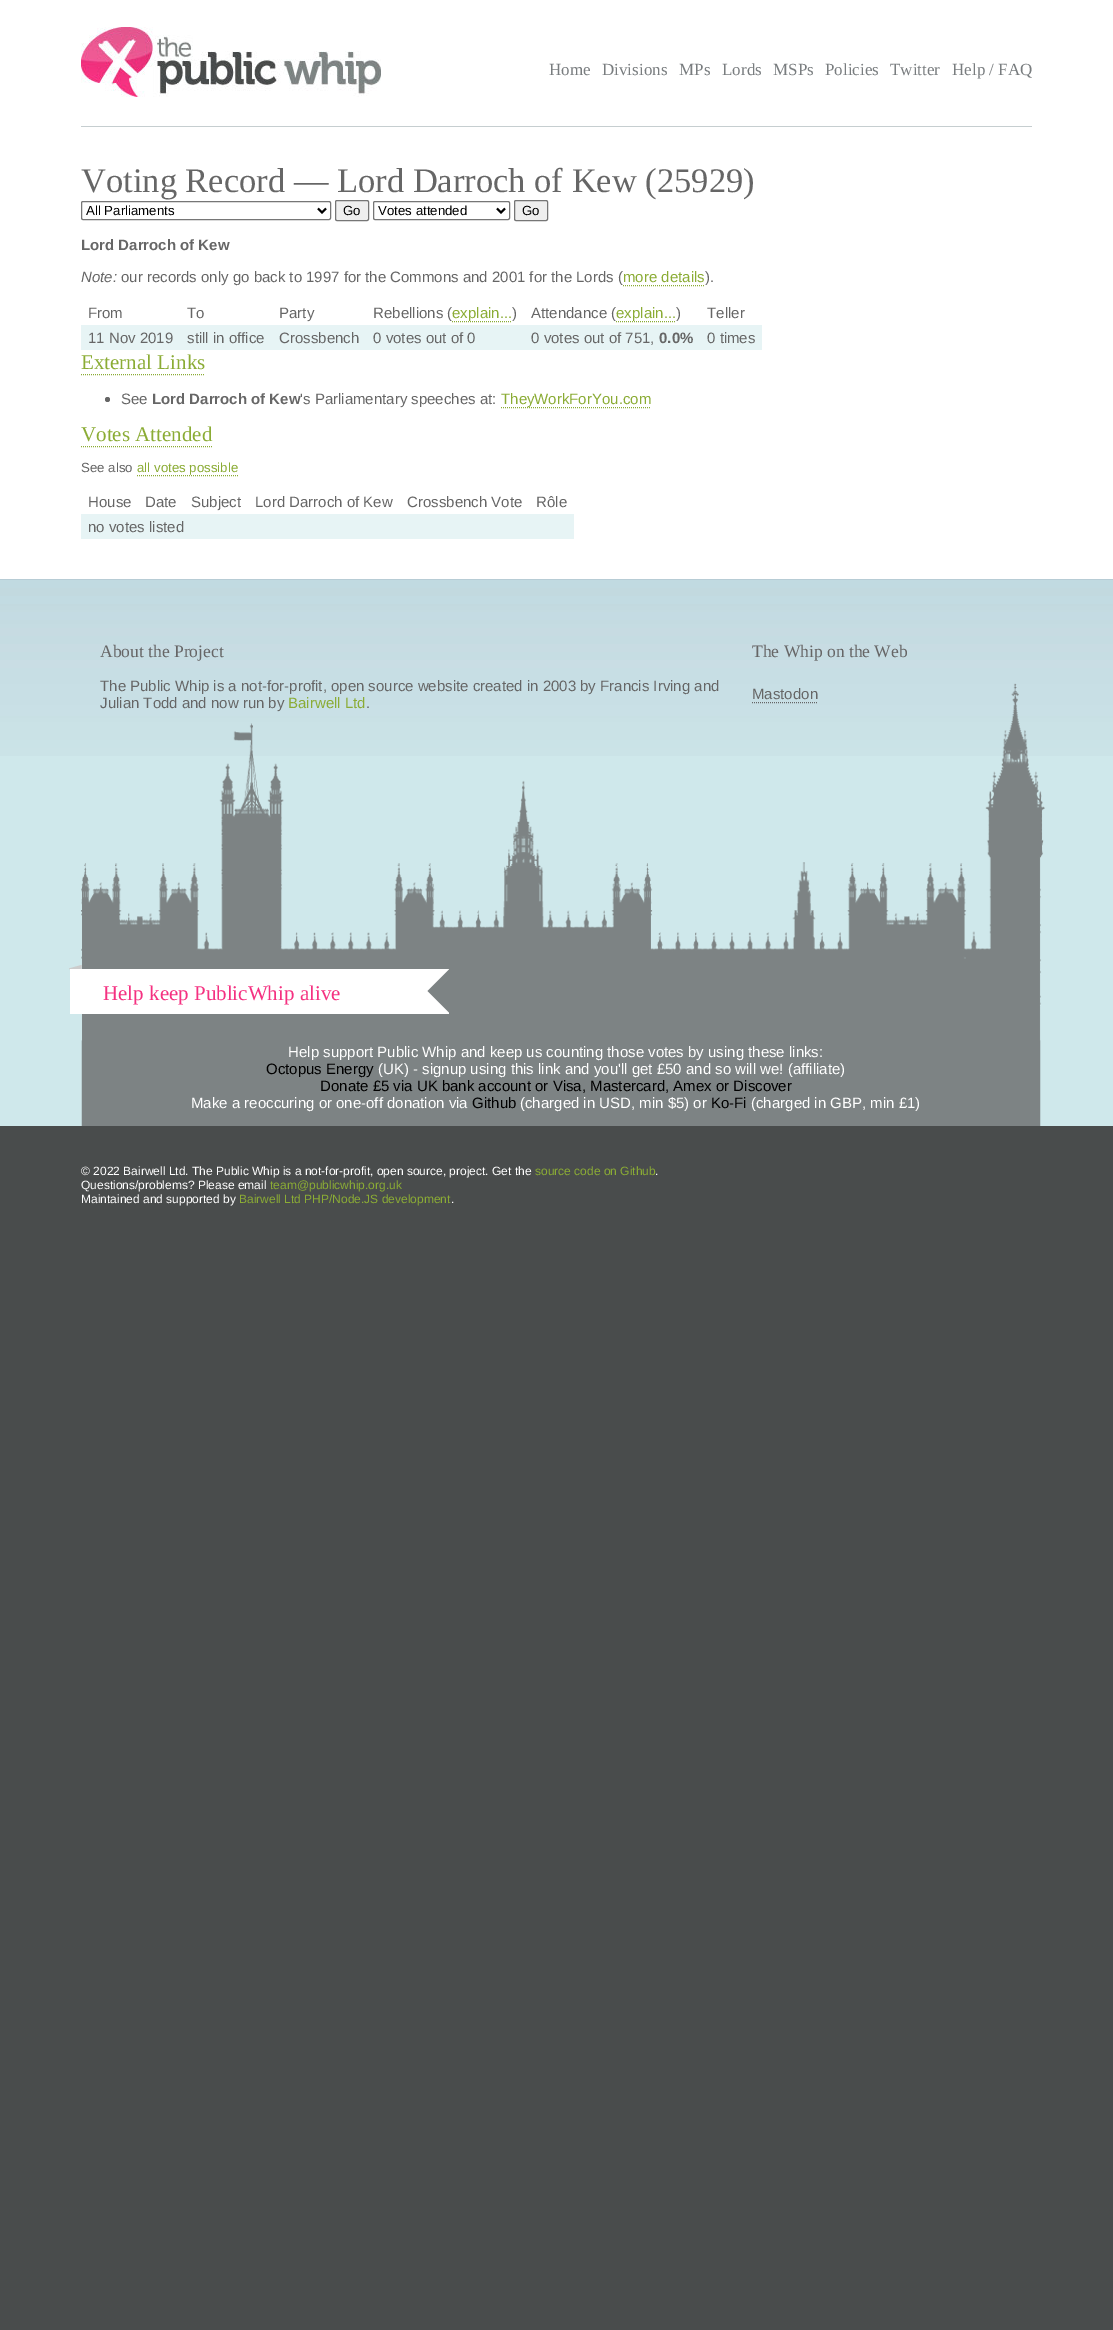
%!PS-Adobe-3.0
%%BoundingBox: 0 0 1113 2330
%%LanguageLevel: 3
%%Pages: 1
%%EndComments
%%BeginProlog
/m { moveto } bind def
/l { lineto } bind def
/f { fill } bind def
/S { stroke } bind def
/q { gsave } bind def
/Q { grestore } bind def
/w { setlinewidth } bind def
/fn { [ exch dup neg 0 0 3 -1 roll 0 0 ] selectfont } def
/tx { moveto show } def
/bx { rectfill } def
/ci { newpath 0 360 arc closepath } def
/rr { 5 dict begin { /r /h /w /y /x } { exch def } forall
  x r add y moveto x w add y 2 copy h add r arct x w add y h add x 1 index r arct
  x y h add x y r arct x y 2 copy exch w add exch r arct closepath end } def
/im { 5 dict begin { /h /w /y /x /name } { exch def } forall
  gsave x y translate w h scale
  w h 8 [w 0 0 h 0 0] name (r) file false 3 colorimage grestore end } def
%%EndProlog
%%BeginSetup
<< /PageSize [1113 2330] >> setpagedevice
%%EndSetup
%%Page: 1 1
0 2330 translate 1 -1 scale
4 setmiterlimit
0.286 0.298 0.298 setrgbcolor
0 0 1113 2330 bx
1 setgray
0 0 1113 579 bx
0.776 0.808 0.816 setrgbcolor
81 126 951 1 bx
(image0.raw) 81 27 300 70 im
/LiberationSerif-Regular 17 fn
0.475 0.49 0.498 setrgbcolor
(Home) 549 75 tx
(Divisions) 602 75 tx
(MPs) 679 75 tx
(Lords) 722 75 tx
(MSPs) 773 75 tx
(Policies) 825 75 tx
(Twitter) 890 75 tx
(Help / FAQ) 952 75 tx
/LiberationSerif-Regular 34.5 fn
0.4 setgray
(Voting Record — Lord Darroch of Kew \(25929\)) 81 192 tx
0.463 setgray
81.5 201.5 249 18 1.5 rr S
0 setgray
2 w
318 208.5 m 322 212.5 l 326 208.5 l S
/LiberationSans-Regular 13.25 fn
(All Parliaments) 86 215 tx
0.937 setgray
335.5 200.5 33 20 1.5 rr q f Q
0.463 setgray
1 w
S
0 setgray
(Go) 343 215 tx
0.463 setgray
373.5 201.5 136 18 1.5 rr S
0 setgray
2 w
497 208.5 m 501 212.5 l 505 208.5 l S
(Votes attended) 378 215 tx
0.937 setgray
514.5 200.5 33 20 1.5 rr q f Q
0.463 setgray
1 w
S
0 setgray
(Go) 522 215 tx
/LiberationSans-Bold 15 fn
0.4 setgray
(Lord Darroch of Kew) 81 250 tx
/LiberationSans-Italic 15 fn
(Note:) 81 282 tx
/LiberationSans-Regular 15 fn
(our records only go back to 1997 for the Commons and 2001 for the Lords \() 121 282 tx
0.545 0.675 0.208 setrgbcolor
(more details) 623 282 tx
[1 1] 0 setdash
623 285.5 m 705 285.5 l S
0.4 setgray
(\).) 705 282 tx
(From) 88 318 tx
(To) 187 318 tx
(Party) 279 318 tx
(Rebellions \() 373 318 tx
0.545 0.675 0.208 setrgbcolor
452 321.5 m 512 321.5 l S
(explain...) 452 318 tx
0.4 setgray
(\)) 512 318 tx
(Attendance \() 531 318 tx
0.545 0.675 0.208 setrgbcolor
616 321.5 m 676 321.5 l S
(explain...) 616 318 tx
0.4 setgray
(\)) 676 318 tx
(Teller) 707 318 tx
0.906 0.957 0.961 setrgbcolor
81 325 681 25 bx
0.4 setgray
(11 Nov 2019) 88 343 tx
(still in office) 187 343 tx
(Crossbench) 279 343 tx
(0 votes out of 0) 373 343 tx
(0 votes out of 751,) 531 343 tx
/LiberationSans-Bold 15 fn
(0.0%) 659 343 tx
/LiberationSans-Regular 15 fn
(0 times) 707 343 tx
/LiberationSerif-Regular 21 fn
0.545 0.675 0.208 setrgbcolor
(External Links) 81 369 tx
81 374.5 m 205 374.5 l S
0.4 setgray
107.5 399.5 2.5 ci f
/LiberationSans-Regular 15 fn
(See) 121 404 tx
/LiberationSans-Bold 15 fn
(Lord Darroch of Kew) 152 404 tx
/LiberationSans-Regular 15 fn
('s Parliamentary speeches at:) 300 404 tx
0.545 0.675 0.208 setrgbcolor
501 407.5 m 651 407.5 l S
(TheyWorkForYou.com) 501 404 tx
/LiberationSerif-Regular 21 fn
(Votes Attended) 81 441 tx
81 446.5 m 212 446.5 l S
/LiberationSans-Regular 13.25 fn
0.4 setgray
(See also) 81 472 tx
0.545 0.675 0.208 setrgbcolor
(all votes possible) 137 472 tx
137 475.5 m 238 475.5 l S
/LiberationSans-Regular 15 fn
0.4 setgray
(House) 88 507 tx
(Date) 145 507 tx
(Subject) 191 507 tx
(Lord Darroch of Kew) 255 507 tx
(Crossbench Vote) 407 507 tx
(Rôle) 536 507 tx
0.906 0.957 0.961 setrgbcolor
81 514 493 25 bx
0.4 setgray
(no votes listed) 88 532 tx
0.812 0.91 0.922 setrgbcolor
0 756 1113 370 bx
(image1.raw) 0 580 1113 176 im
0.718 0.8 0.835 setrgbcolor
0 579 1113 1 bx
/LiberationSerif-Regular 17.5 fn
0.4 setgray
(About the Project) 100 657 tx
(image2.raw) 69 683 976 443 im
/LiberationSans-Regular 15 fn
(The Public Whip is a not-for-profit, open source website created in 2003 by Francis Irving and) 100 691 tx
(Julian Todd and now run by) 100 708 tx
0.545 0.675 0.208 setrgbcolor
(Bairwell Ltd) 288 708 tx
0.4 setgray
(.) 366 708 tx
/LiberationSerif-Regular 17.5 fn
(The Whip on the Web) 752 657 tx
/LiberationSans-Regular 15 fn
(Mastodon) 752 699 tx
752 702.5 m 818 702.5 l S
/LiberationSerif-Regular 21 fn
0.961 0.192 0.506 setrgbcolor
(Help keep PublicWhip alive) 103 1000 tx
/LiberationSans-Regular 15 fn
1 setgray
(Help support Public Whip and keep us counting those votes by using these links:) 288 1057 tx
0 setgray
(Octopus Energy) 266 1074 tx
1 setgray
(\(UK\) - signup using this link and you'll get £50 and so will we! \(affiliate\)) 378 1074 tx
0 setgray
(Donate £5 via UK bank account or Visa, Mastercard, Amex or Discover) 320 1091 tx
1 setgray
(Make a reoccuring or one-off donation via) 191 1108 tx
0 setgray
(Github) 472 1108 tx
1 setgray
(\(charged in USD, min $5\) or) 520 1108 tx
0 setgray
(Ko-Fi) 711 1108 tx
1 setgray
(\(charged in GBP, min £1\)) 751 1108 tx
/LiberationSans-Regular 12 fn
(© 2022 Bairwell Ltd. The Public Whip is a not-for-profit, open source, project. Get the) 81 1175 tx
0.545 0.675 0.208 setrgbcolor
(source code on Github) 535 1175 tx
1 setgray
(.) 655 1175 tx
(Questions/problems? Please email) 81 1189 tx
0.545 0.675 0.208 setrgbcolor
(team@publicwhip.org.uk) 270 1189 tx
1 setgray
(Maintained and supported by) 81 1203 tx
0.545 0.675 0.208 setrgbcolor
(Bairwell Ltd PHP/Node.JS development) 239 1203 tx
1 setgray
(.) 451 1203 tx
showpage
%%EOF
